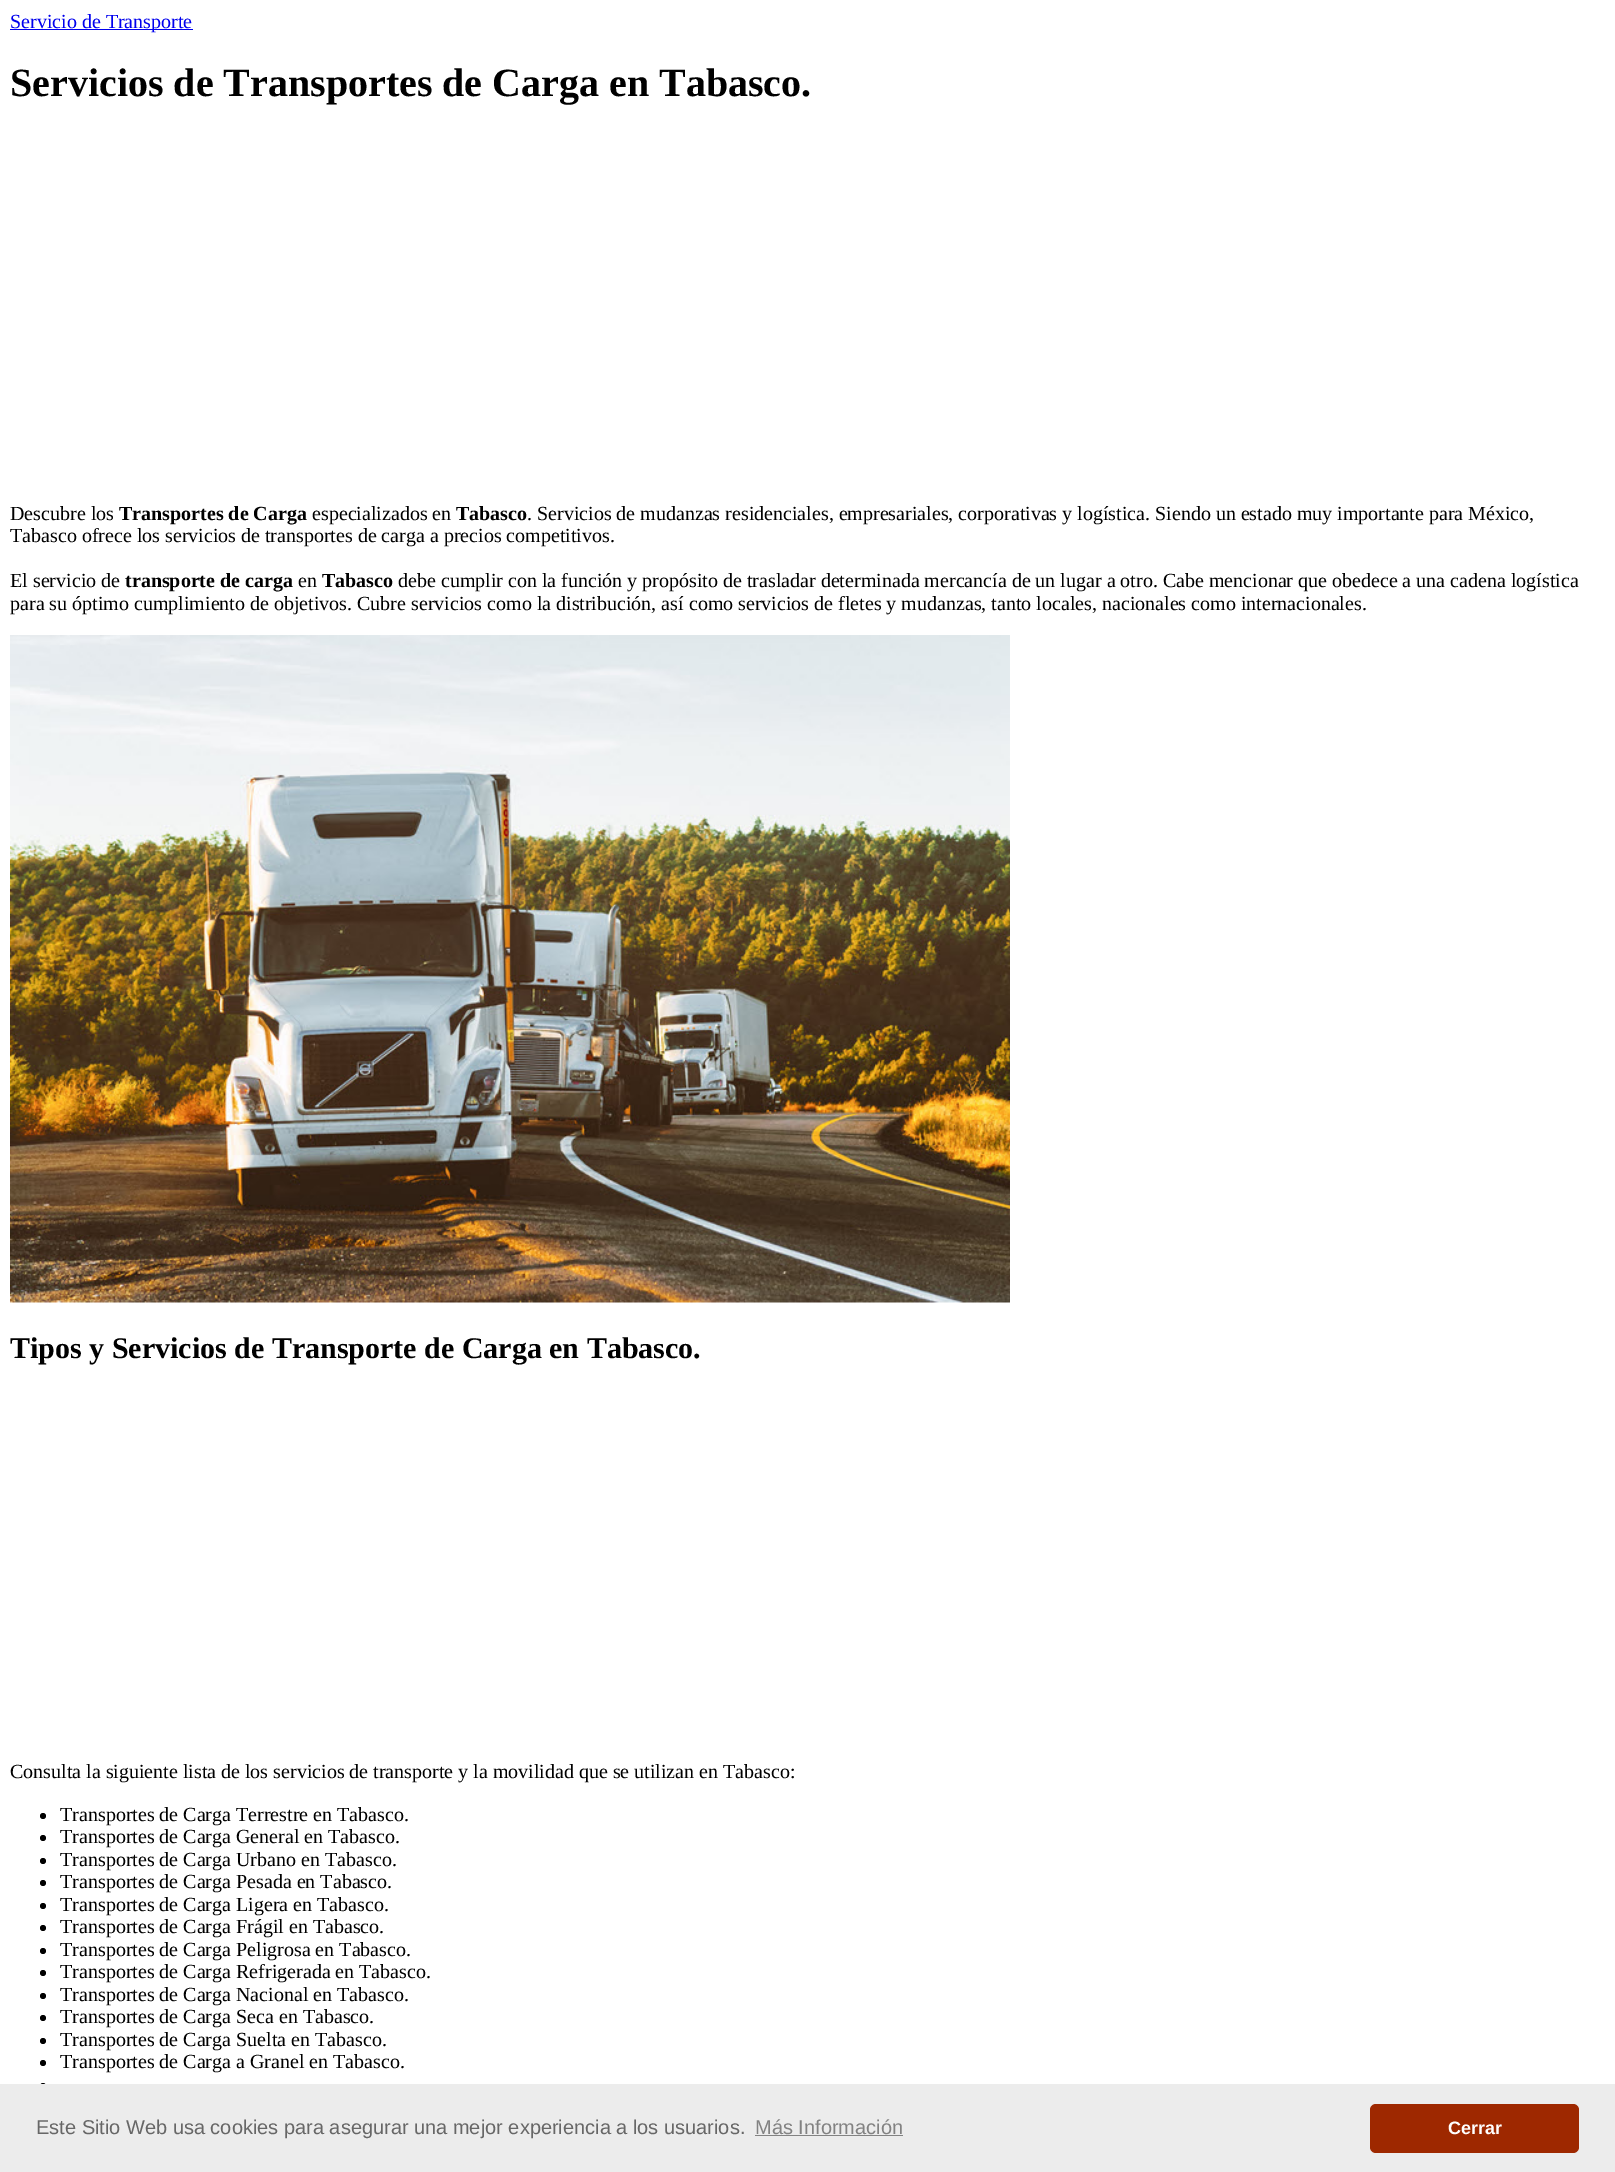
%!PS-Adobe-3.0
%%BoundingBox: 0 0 1615 2172
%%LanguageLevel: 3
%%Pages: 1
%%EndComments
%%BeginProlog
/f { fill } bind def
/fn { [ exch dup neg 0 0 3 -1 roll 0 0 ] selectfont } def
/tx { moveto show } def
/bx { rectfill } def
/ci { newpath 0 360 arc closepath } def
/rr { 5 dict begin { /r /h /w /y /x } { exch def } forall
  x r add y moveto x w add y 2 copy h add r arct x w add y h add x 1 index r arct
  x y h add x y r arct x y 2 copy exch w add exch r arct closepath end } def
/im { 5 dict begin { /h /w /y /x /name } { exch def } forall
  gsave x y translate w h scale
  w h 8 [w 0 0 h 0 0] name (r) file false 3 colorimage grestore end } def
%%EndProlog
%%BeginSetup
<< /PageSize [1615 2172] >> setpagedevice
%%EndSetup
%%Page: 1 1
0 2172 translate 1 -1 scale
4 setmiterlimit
1 setgray
0 0 1615 2172 bx
0 0 0.933 setrgbcolor
10 29 183 1 bx
/LiberationSerif-Regular 20 fn
(Servicio de Transporte) 10 28 tx
/LiberationSerif-Bold 40 fn
0 setgray
(Servicios de Transportes de Carga en Tabasco.) 10 96 tx
/LiberationSerif-Regular 20 fn
(Descubre los) 10 520 tx
/LiberationSerif-Bold 20 fn
(Transportes de Carga) 119 520 tx
/LiberationSerif-Regular 20 fn
(especializados en) 312 520 tx
/LiberationSerif-Bold 20 fn
(Tabasco) 456 520 tx
/LiberationSerif-Regular 20 fn
(. Servicios de mudanzas residenciales, empresariales, corporativas y logística. Siendo un estado muy importante para México,) 527 520 tx
(Tabasco ofrece los servicios de transportes de carga a precios competitivos.) 10 542 tx
(El servicio de) 10 587 tx
/LiberationSerif-Bold 20 fn
(transporte de carga) 125 587 tx
/LiberationSerif-Regular 20 fn
(en) 298 587 tx
/LiberationSerif-Bold 20 fn
(Tabasco) 322 587 tx
/LiberationSerif-Regular 20 fn
(debe cumplir con la función y propósito de trasladar determinada mercancía de un lugar a otro. Cabe mencionar que obedece a una cadena logística) 398 587 tx
(para su óptimo cumplimiento de objetivos. Cubre servicios como la distribución, así como servicios de fletes y mudanzas, tanto locales, nacionales como internacionales.) 10 610 tx
(image0.raw) 10 635 1000 668 im
/LiberationSerif-Bold 30 fn
(Tipos y Servicios de Transporte de Carga en Tabasco.) 10 1358 tx
/LiberationSerif-Regular 20 fn
(Consulta la siguiente lista de los servicios de transporte y la movilidad que se utilizan en Tabasco:) 10 1778 tx
43 1816 3 ci f
(Transportes de Carga Terrestre en Tabasco.) 60 1821 tx
43 1838 3 ci f
(Transportes de Carga General en Tabasco.) 60 1843 tx
43 1861 3 ci f
(Transportes de Carga Urbano en Tabasco.) 60 1866 tx
43 1883 3 ci f
(Transportes de Carga Pesada en Tabasco.) 60 1888 tx
43 1906 3 ci f
(Transportes de Carga Ligera en Tabasco.) 60 1911 tx
43 1928 3 ci f
(Transportes de Carga Frágil en Tabasco.) 60 1933 tx
43 1951 3 ci f
(Transportes de Carga Peligrosa en Tabasco.) 60 1956 tx
43 1973 3 ci f
(Transportes de Carga Refrigerada en Tabasco.) 60 1978 tx
43 1996 3 ci f
(Transportes de Carga Nacional en Tabasco.) 60 2001 tx
43 2018 3 ci f
(Transportes de Carga Seca en Tabasco.) 60 2023 tx
43 2041 3 ci f
(Transportes de Carga Suelta en Tabasco.) 60 2046 tx
43 2063 3 ci f
(Transportes de Carga a Granel en Tabasco.) 60 2068 tx
43 2086 3 ci f
0.925 setgray
0 2084 1615 88 bx
/LiberationSans-Regular 20 fn
0.404 setgray
(Este Sitio Web usa cookies para asegurar una mejor experiencia a los usuarios.) 36 2134 tx
0.51 setgray
(Más Información) 755 2134 tx
755 2135 148 1 bx
0.62 0.157 0 setrgbcolor
1370 2104 209 49 6 rr f
/LiberationSans-Bold 18 fn
1 setgray
(Cerrar) 1448 2134 tx
showpage
%%EOF
